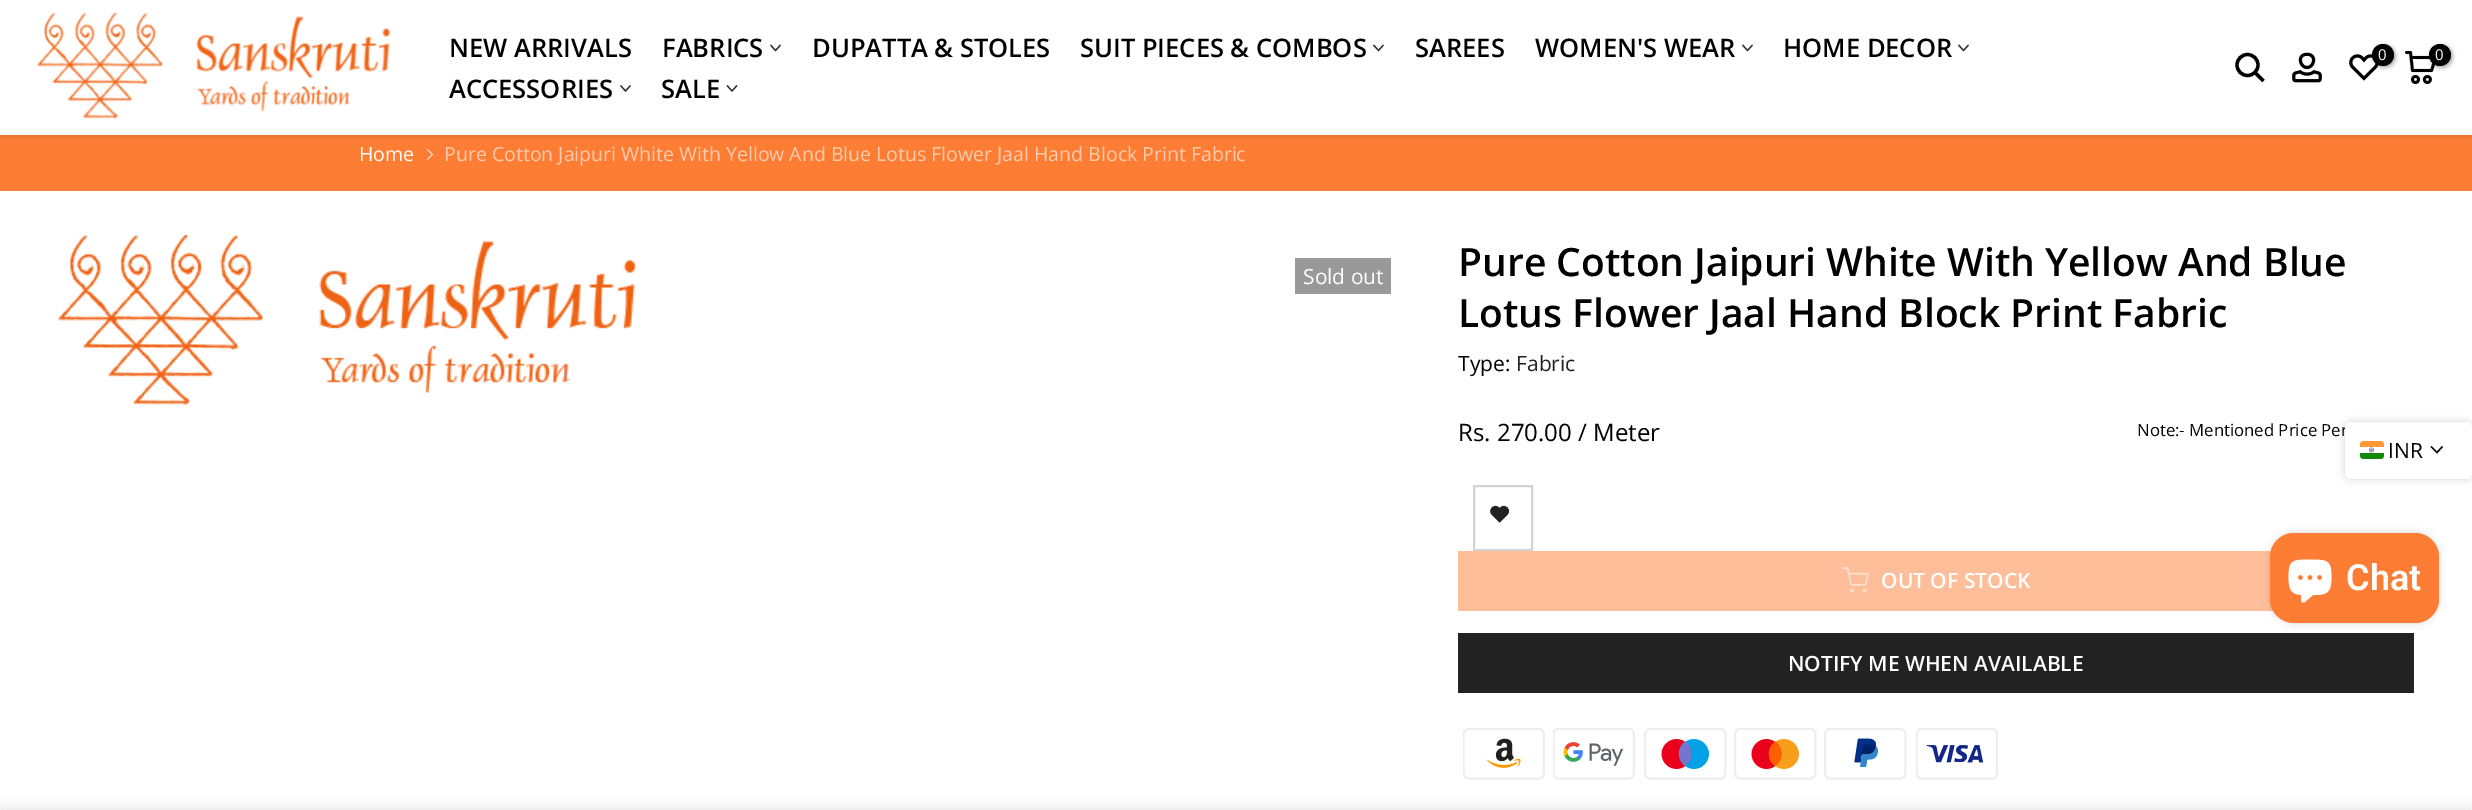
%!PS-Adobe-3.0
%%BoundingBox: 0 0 2472 810
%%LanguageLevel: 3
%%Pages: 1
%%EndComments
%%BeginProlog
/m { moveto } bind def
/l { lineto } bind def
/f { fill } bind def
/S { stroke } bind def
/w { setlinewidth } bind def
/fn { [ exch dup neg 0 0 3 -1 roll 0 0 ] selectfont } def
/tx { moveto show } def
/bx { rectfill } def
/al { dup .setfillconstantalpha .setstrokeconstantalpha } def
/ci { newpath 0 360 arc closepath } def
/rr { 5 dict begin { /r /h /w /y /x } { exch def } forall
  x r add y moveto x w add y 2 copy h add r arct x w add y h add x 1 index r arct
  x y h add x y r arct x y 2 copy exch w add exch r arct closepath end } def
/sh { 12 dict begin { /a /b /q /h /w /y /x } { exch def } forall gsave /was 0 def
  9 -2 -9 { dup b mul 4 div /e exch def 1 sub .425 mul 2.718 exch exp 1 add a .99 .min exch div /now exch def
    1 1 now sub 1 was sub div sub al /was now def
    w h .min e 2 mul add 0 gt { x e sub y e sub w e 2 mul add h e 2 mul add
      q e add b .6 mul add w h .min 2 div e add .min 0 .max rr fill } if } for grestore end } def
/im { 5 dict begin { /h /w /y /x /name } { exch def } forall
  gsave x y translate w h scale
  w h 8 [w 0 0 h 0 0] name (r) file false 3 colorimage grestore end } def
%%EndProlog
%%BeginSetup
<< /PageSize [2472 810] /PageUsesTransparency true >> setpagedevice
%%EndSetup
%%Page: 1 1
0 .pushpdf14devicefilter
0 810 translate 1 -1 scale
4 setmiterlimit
1 setgray
0 0 2472 810 bx
0.996 0.49 0.204 setrgbcolor
0 135 2472 56 bx
0 setgray
0 2 2472 135 0 2 0.1 sh
1 setgray
0 0 2472 135 bx
(image0.raw) 37 12 354 107 im
/OpenSans-SemiBold 25.5 fn
0 setgray
(NEW ARRIVALS) 449 57 tx
(FABRICS) 662 57 tx
0.2 setgray
1.3 w
2 setlinecap
780 45.5 m 775.5 50.5 l 771 45.5 l S
0 setgray
(DUPATTA & STOLES) 812 57 tx
(SUIT PIECES & COMBOS) 1080 57 tx
0.2 setgray
1383 45.5 m 1378.5 50.5 l 1374 45.5 l S
0 setgray
(SAREES) 1415 57 tx
(WOMEN'S WEAR) 1535 57 tx
0.2 setgray
1752 45.5 m 1747.5 50.5 l 1743 45.5 l S
0 setgray
(HOME DECOR) 1783 57 tx
0.2 setgray
1968 45.5 m 1963.5 50.5 l 1959 45.5 l S
0 setgray
(ACCESSORIES) 449 98 tx
0.2 setgray
630 86 m 625.5 91 l 621 86 l S
0 setgray
(SALE) 661 98 tx
0.2 setgray
736.5 86 m 732 91 l 727.5 86 l S
0 setgray
3.3 w
0 setlinecap
2247.5 65 10.5 ci S
2255 72.5 m 2263.5 81 l S
(image1.raw) 2292 52 30 31 im
(image2.raw) 2349 54 30 27 im
2373 45 23 23 11.5 2 0.3 sh
2383 55 11 ci f
/OpenSans-Regular 15 fn
1 setgray
(0) 2378 60 tx
(image3.raw) 2405 51 31 33 im
0 setgray
2430 45 23 23 11.5 2 0.3 sh
2440 55 11 ci f
1 setgray
(0) 2435 60 tx
/OpenSans-Regular 19.5 fn
(Home) 359 161 tx
(image4.raw) 427 149 6 11 im
1 0.796 0.682 setrgbcolor
(Pure Cotton Jaipuri White With Yellow And Blue Lotus Flower Jaal Hand Block Print Fabric) 444 161 tx
(image5.raw) 58 235 578 170 im
0.6 setgray
1295 258 96 36 bx
/OpenSans-Regular 21 fn
1 setgray
(Sold out) 1303 284 tx
/OpenSans-SemiBold 39 fn
0 setgray
(Pure Cotton Jaipuri White With Yellow And Blue) 1458 276 tx
(Lotus Flower Jaal Hand Block Print Fabric) 1458 327 tx
/OpenSans-Regular 21 fn
(Type:) 1458 371 tx
0.133 setgray
(Fabric) 1516 371 tx
/OpenSans-Regular 24 fn
0 setgray
(Rs. 270.00 / Meter) 1458 441 tx
/OpenSans-Regular 16.75 fn
(Note:- Mentioned Price Per) 2137 436 tx
0.827 setgray
2 w
1474 486 58 64 rectstroke
(image6.raw) 1490 505 20 18 im
1 0.745 0.604 setrgbcolor
1458 551 816 60 bx
(image7.raw) 1842 567 27 26 im
/OpenSans-SemiBold 21 fn
1 setgray
(OUT OF STOCK) 1881 588 tx
0.133 setgray
1458 633 956 60 bx
1 setgray
(NOTIFY ME WHEN AVAILABLE) 1788 671 tx
(image8.raw) 1463 728 82 52 im
(image9.raw) 1553 728 82 52 im
(image10.raw) 1644 728 83 52 im
(image11.raw) 1734 728 83 52 im
(image12.raw) 1824 728 83 52 im
(image13.raw) 1916 728 82 52 im
0 setgray
2345 422 127 57 6 4 0.17 sh
1 setgray
2345 422 127 57 6 rr f
(image14.raw) 2360 441 24 18 im
/OpenSans-Regular 21 fn
0 setgray
(INR) 2388 458 tx
1.4 w
2 setlinecap
2442 447 m 2437 452.5 l 2431.5 447 l S
2270 533 169 90 24 4 0.15 sh
0.996 0.49 0.204 setrgbcolor
2270 533 169 90 24 rr f
(image15.raw) 2288 559 44 44 im
/Roboto-SemiBold 36 fn
1 setgray
(Chat) 2346 590 tx
0 setgray
0 810 2472 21 0 7 0.14 sh
.poppdf14devicefilter showpage
%%EOF
